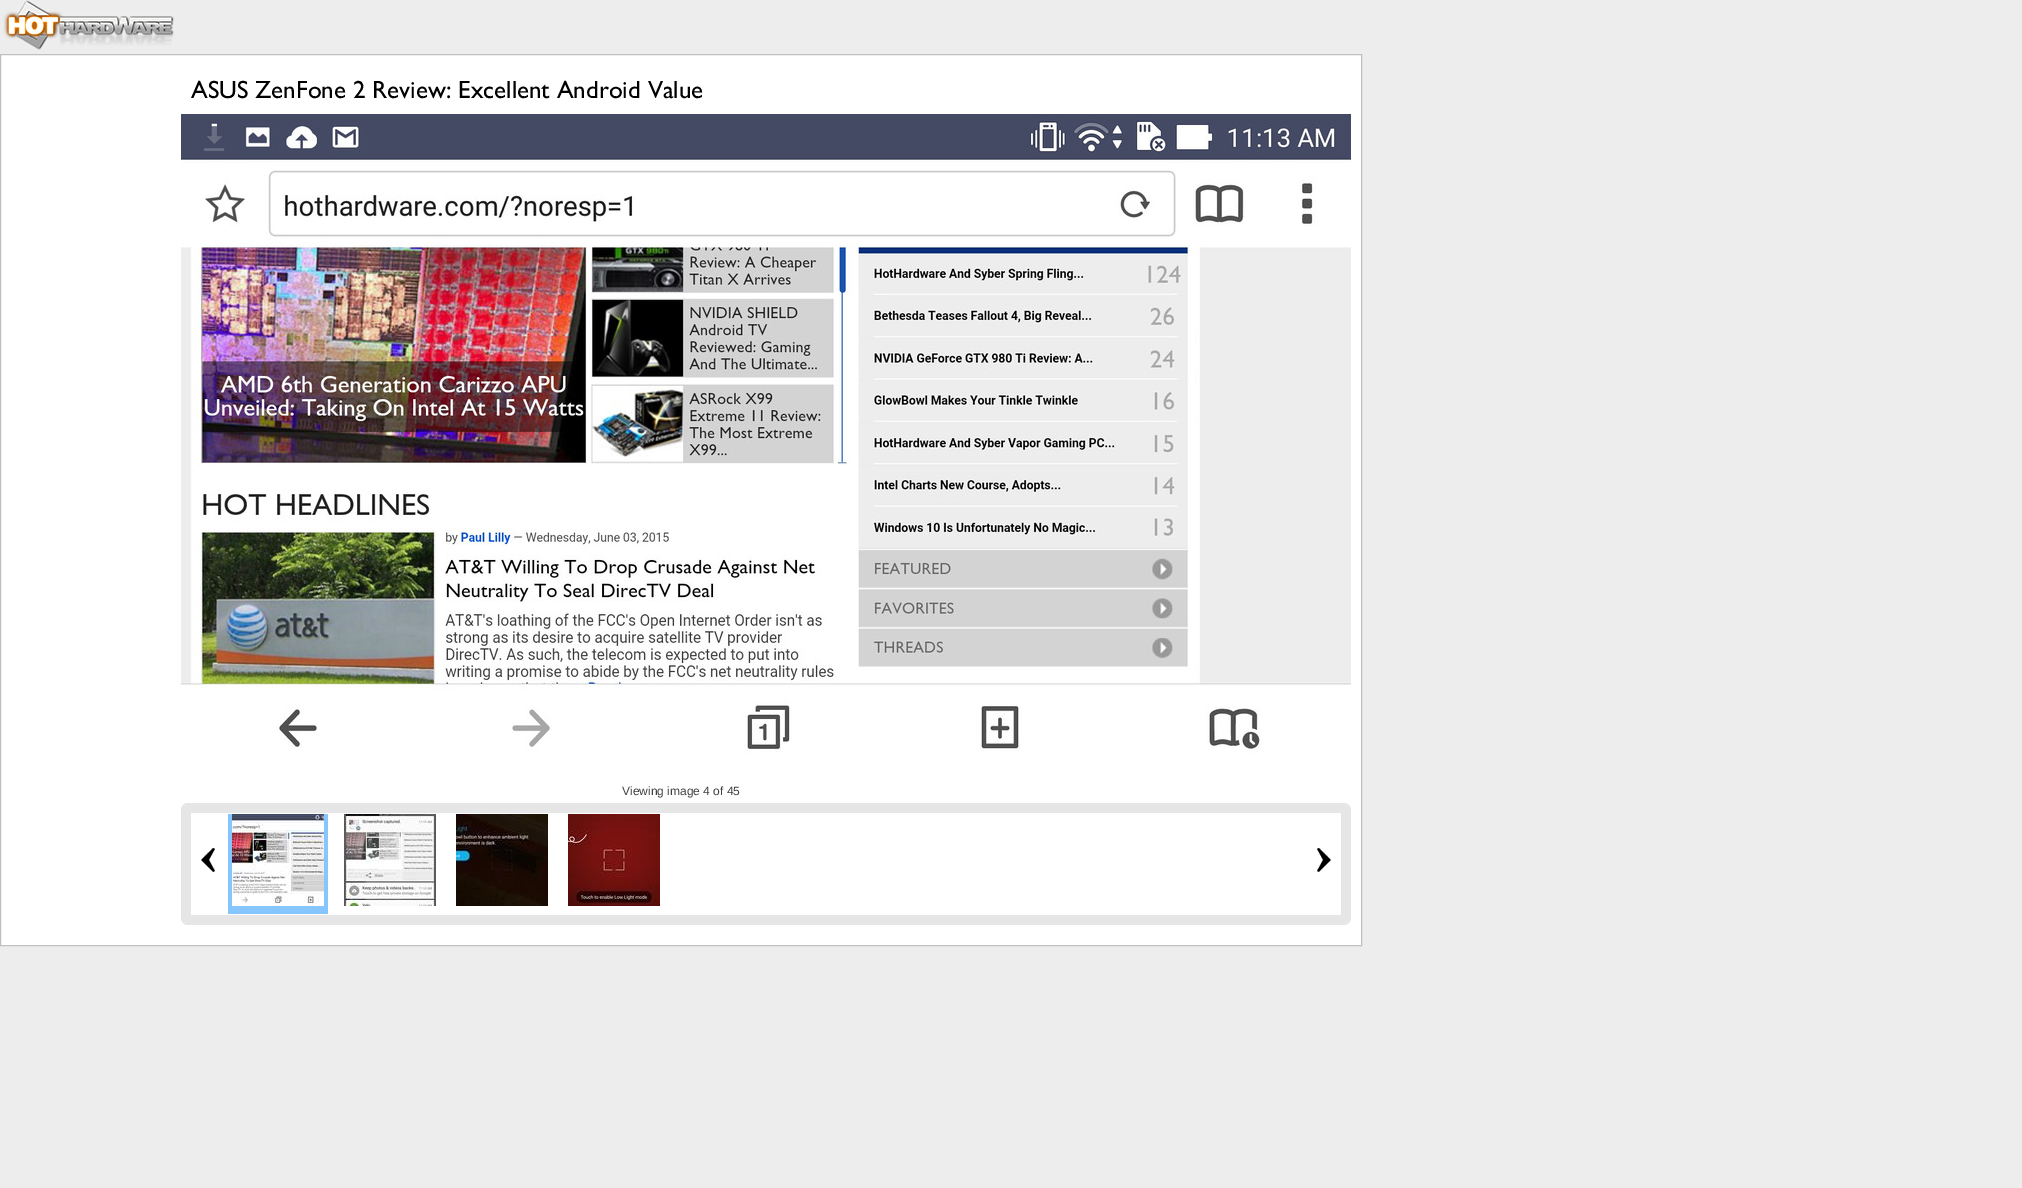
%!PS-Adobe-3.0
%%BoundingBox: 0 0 2022 1188
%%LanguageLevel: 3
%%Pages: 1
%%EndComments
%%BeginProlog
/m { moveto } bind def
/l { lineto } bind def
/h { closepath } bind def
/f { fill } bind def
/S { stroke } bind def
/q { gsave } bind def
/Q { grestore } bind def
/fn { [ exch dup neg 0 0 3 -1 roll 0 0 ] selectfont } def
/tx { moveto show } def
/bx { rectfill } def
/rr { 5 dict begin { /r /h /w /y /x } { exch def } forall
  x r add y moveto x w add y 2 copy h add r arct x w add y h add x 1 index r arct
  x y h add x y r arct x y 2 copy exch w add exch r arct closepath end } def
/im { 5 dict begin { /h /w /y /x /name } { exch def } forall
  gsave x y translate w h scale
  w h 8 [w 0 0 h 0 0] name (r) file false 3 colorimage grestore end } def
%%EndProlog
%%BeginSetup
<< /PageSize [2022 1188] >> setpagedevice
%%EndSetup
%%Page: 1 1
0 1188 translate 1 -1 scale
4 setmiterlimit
0.929 setgray
0 0 2022 1188 bx
(image0.raw) 3 0 171 50 im
1 setgray
0.5 54.5 m 1361.5 54.5 l 1361.5 945.5 l 0.5 945.5 l h q f Q
0.753 setgray
S
/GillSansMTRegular-Regular 25 fn
0 setgray
(ASUS ZenFone 2 Review: Excellent Android Value) 191 98 tx
(image1.raw) 181 114 1170 640 im
/LiberationSans-Regular 12 fn
0.247 setgray
(Viewing image 4 of 45) 622 795 tx
0.902 setgray
181 803 1170 122 7 rr f
1 setgray
191 813 1150 102 bx
(image2.raw) 201 848 14 24 im
0.529 0.773 1 setrgbcolor
228 814 100 100 bx
(image3.raw) 232 814 92 92 im
(image4.raw) 344 814 92 92 im
(image5.raw) 456 814 92 92 im
(image6.raw) 568 814 92 92 im
(image7.raw) 1317 848 14 24 im
showpage
%%EOF
